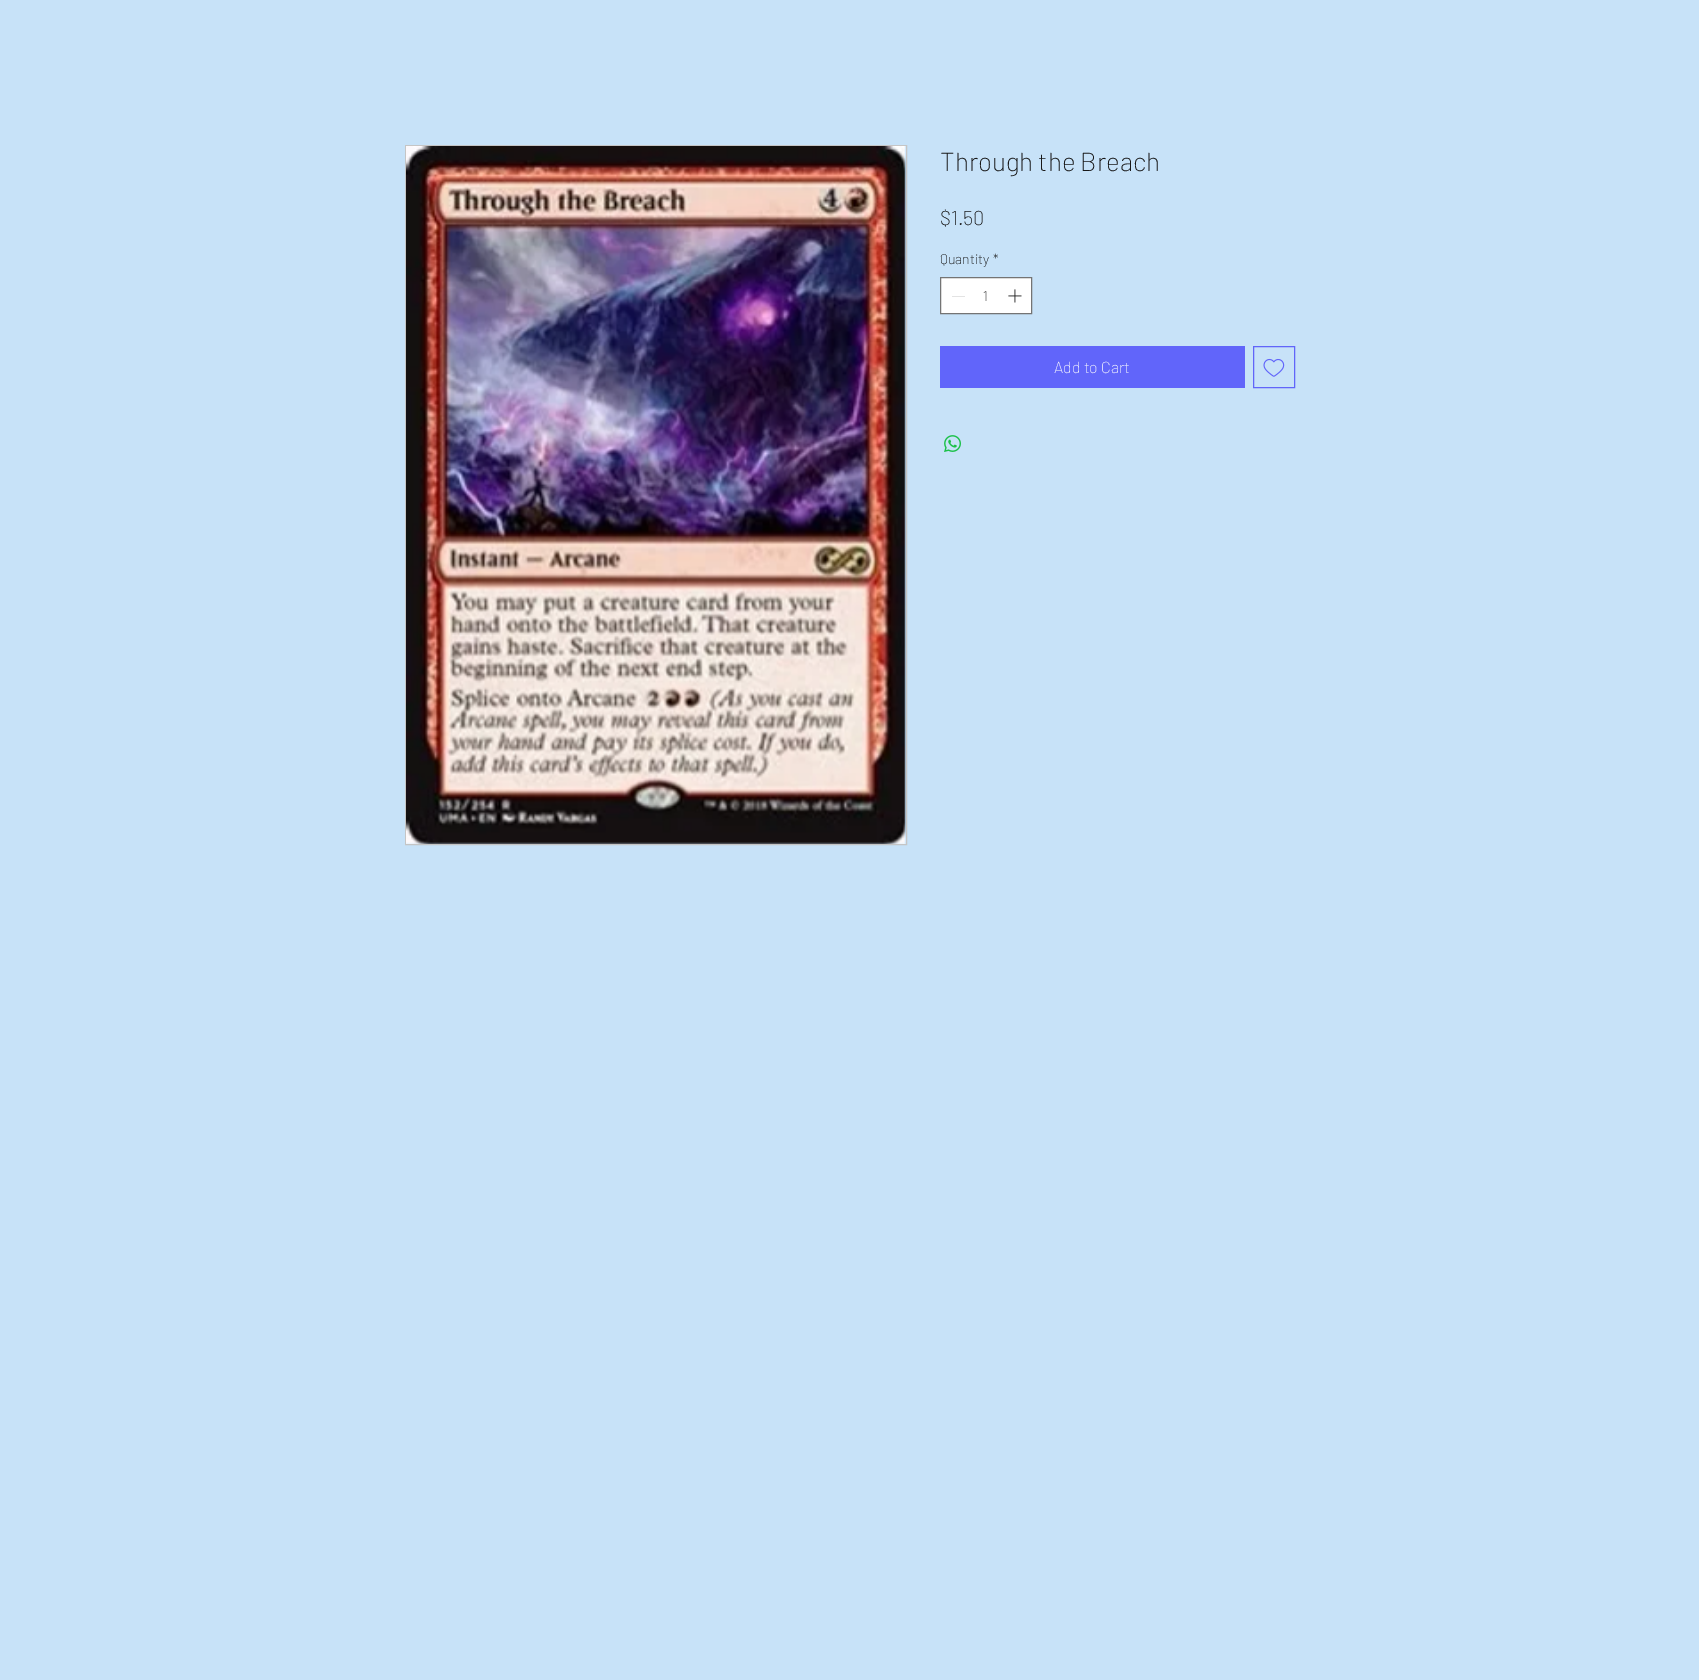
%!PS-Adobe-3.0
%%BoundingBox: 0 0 1699 1680
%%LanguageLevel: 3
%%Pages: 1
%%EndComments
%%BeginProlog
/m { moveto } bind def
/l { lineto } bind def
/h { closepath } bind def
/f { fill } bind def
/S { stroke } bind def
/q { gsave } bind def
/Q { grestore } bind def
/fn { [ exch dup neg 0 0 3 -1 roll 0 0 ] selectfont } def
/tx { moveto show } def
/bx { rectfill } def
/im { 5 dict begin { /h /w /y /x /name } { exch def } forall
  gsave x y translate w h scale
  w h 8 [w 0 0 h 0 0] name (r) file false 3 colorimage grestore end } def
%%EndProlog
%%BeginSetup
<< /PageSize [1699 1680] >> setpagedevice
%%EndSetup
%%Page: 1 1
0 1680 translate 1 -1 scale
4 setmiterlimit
0.78 0.886 0.973 setrgbcolor
0 0 1699 1680 bx
0.773 setgray
405.5 145.5 501 699 rectstroke
(image0.raw) 406 146 500 698 im
/Barlow-ExtraLight 26 fn
0.094 setgray
(Through the Breach) 940 171 tx
/Barlow-ExtraLight 20 fn
($1.50) 940 225 tx
/Barlow-ExtraLight 14 fn
(Quantity) 940 264 tx
(*) 993 264 tx
1 setgray
940.5 277.5 m 1031.5 277.5 l 1031.5 313.5 l 940.5 313.5 l h q f Q
0.455 setgray
S
0.89 setgray
952 296 13 1 bx
0.094 setgray
(1) 983 301 tx
(image1.raw) 1008 289 14 14 im
0.38 0.396 0.98 setrgbcolor
940 346 305 42 bx
/Barlow-ExtraLight 16 fn
1 setgray
(Add to Cart) 1054 373 tx
0.38 0.396 0.98 setrgbcolor
1253.5 346.5 41 41 rectstroke
(image2.raw) 1263 358 22 19 im
(image3.raw) 944 435 17 17 im
showpage
%%EOF
